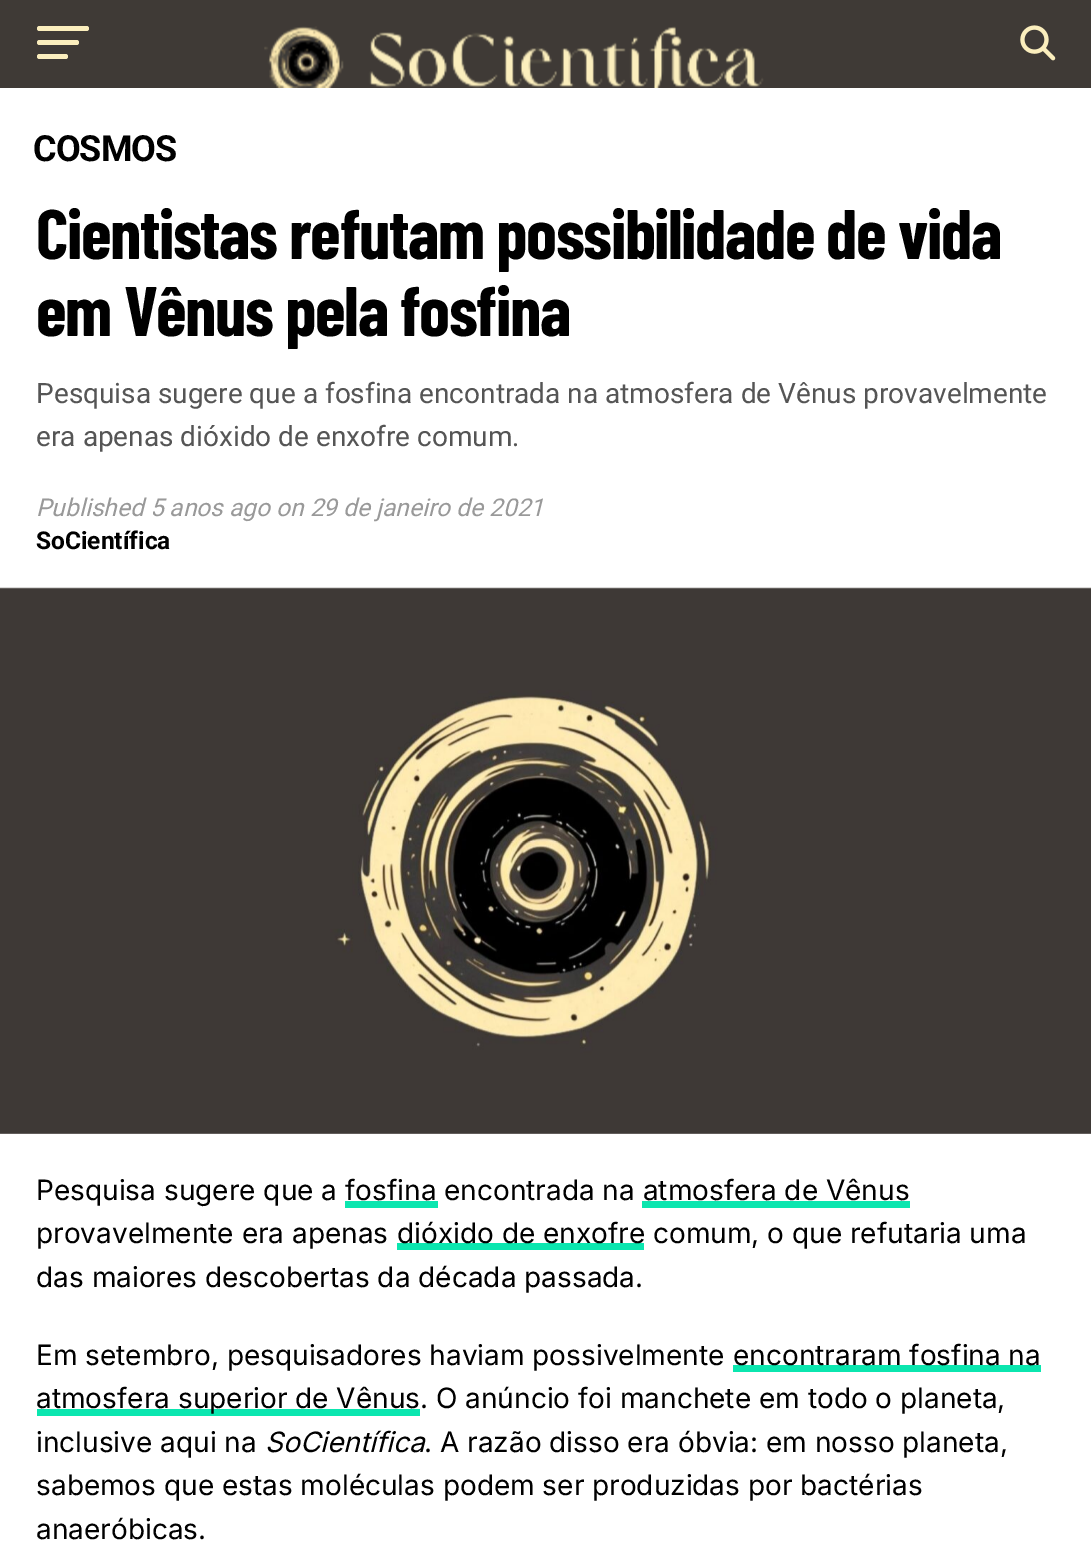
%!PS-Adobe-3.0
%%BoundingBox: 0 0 1091 1561
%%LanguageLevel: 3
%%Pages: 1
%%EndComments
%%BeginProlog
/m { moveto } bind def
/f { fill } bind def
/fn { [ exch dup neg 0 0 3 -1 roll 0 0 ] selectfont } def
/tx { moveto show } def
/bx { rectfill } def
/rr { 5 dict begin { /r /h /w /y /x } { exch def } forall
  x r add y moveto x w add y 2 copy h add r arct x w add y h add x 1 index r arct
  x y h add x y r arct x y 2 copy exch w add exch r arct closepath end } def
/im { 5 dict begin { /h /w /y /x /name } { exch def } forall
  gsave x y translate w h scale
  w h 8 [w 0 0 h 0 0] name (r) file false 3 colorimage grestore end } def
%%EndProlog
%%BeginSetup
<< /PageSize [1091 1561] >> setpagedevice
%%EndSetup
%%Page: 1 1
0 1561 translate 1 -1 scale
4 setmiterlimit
1 setgray
0 0 1091 1561 bx
0.247 0.227 0.212 setrgbcolor
0 0 1091 88 bx
0.984 0.933 0.741 setrgbcolor
37 26 52 5 2.5 rr f
37 40 42 5 2.5 rr f
37 54 31 5 2.5 rr f
(image0.raw) 264 26 500 62 im
(image1.raw) 1020 25 36 36 im
/Roboto-Bold 36 fn
0 setgray
33 161 m -1 0 (COSMOS) ashow
/BarlowCondensed-Bold 70 fn
36 259 m -1.4 0 (Cientistas refutam possibilidade de vida) ashow
36 336 m -1.4 0 (em Vênus pela fosfina) ashow
/Roboto-Regular 28 fn
0.333 setgray
(Pesquisa sugere que a fosfina encontrada na atmosfera de Vênus provavelmente) 36 403 tx
(era apenas dióxido de enxofre comum.) 36 446 tx
/Roboto-Italic 24.5 fn
0.6 setgray
(Published 5 anos ago on 29 de janeiro de 2021) 36 516 tx
/Roboto-Bold 24.5 fn
0 setgray
(SoCientífica) 36 549 tx
(image2.raw) 0 587 1091 547 im
/Inter-Regular 28 fn
(Pesquisa sugere que a fosfina encontrada na atmosfera de Vênus) 36 1200 tx
0.043 0.902 0.686 setrgbcolor
345 1201 93 7 bx
642 1201 268 7 bx
0 setgray
(provavelmente era apenas) 36 1243 tx
0.043 0.902 0.686 setrgbcolor
397 1243 247 7 bx
0 setgray
(dióxido de enxofre comum, o que refutaria uma) 397 1243 tx
(das maiores descobertas da década passada.) 36 1287 tx
(Em setembro, pesquisadores haviam possivelmente) 36 1365 tx
0.043 0.902 0.686 setrgbcolor
733 1365 308 7 bx
0 setgray
(encontraram fosfina na) 733 1365 tx
0.043 0.902 0.686 setrgbcolor
37 1409 383 7 bx
0 setgray
(atmosfera superior de Vênus. O anúncio foi manchete em todo o planeta,) 36 1408 tx
(inclusive aqui na) 36 1452 tx
/Inter-Italic 28 fn
(SoCientífica) 265 1452 tx
/Inter-Regular 28 fn
(. A razão disso era óbvia: em nosso planeta,) 424 1452 tx
(sabemos que estas moléculas podem ser produzidas por bactérias) 36 1495 tx
(anaeróbicas.) 36 1539 tx
showpage
%%EOF
